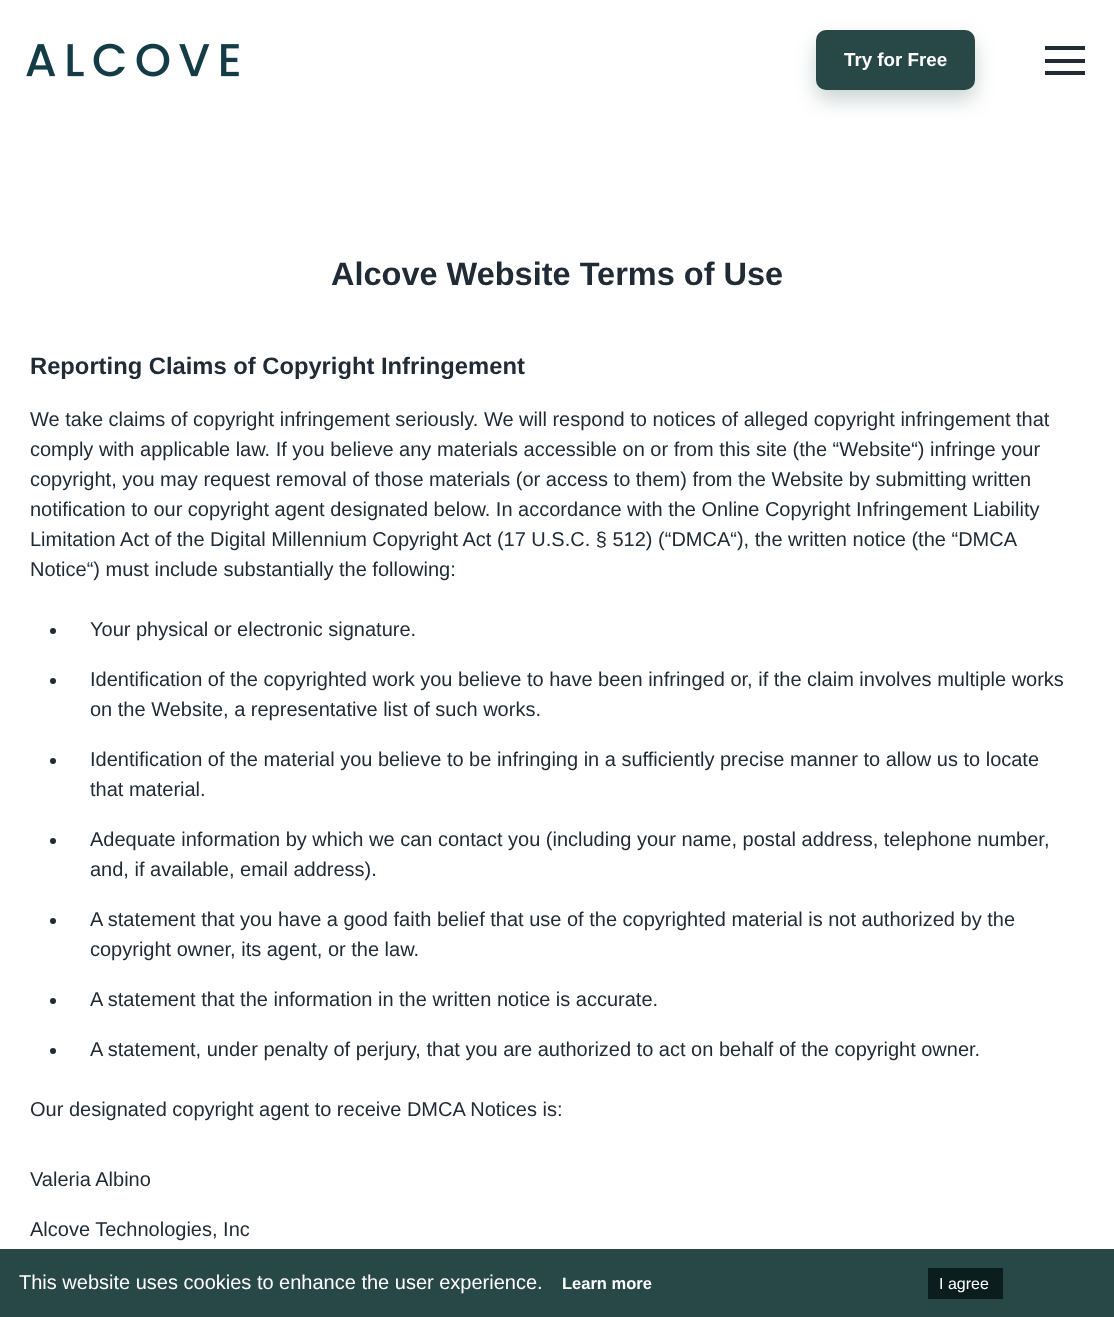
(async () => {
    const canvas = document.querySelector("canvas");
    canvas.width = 1114;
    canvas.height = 1317;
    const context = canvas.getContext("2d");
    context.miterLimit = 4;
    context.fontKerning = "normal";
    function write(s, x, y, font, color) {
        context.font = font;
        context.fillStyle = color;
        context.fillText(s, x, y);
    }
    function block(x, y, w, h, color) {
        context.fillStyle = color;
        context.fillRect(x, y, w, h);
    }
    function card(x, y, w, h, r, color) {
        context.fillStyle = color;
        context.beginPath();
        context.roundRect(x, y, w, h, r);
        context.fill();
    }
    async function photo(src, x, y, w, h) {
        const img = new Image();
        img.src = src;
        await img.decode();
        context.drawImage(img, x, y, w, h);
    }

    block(0, 0, 1114, 1317, "rgb(255, 255, 255)");
    await photo("media/1.png", 26, 43, 213, 34);
    context.fillStyle = "rgba(40, 71, 71, 0.24)";
    context.filter = "blur(10px)";
    context.beginPath();
    context.roundRect(816, 40, 159, 60, 10);
    context.fill();
    context.filter = "none";
    card(816, 30, 159, 60, 10, "rgb(40, 71, 71)");
    write("Try for Free", 844, 66, "bold 18.75px Liberation Sans", "rgb(255, 255, 255)");
    block(1045, 46, 40, 4, "rgb(33, 43, 54)");
    block(1045, 59, 40, 4, "rgb(33, 43, 54)");
    block(1045, 71, 40, 4, "rgb(33, 43, 54)");
    write("Alcove Website Terms of Use", 331, 285, "bold 32.5px Liberation Sans", "rgb(33, 43, 54)");
    write("Reporting Claims of Copyright Infringement", 30, 374, "bold 23.75px Liberation Sans", "rgb(33, 43, 54)");
    write("We take claims of copyright infringement seriously. We will respond to notices of alleged copyright infringement that", 30, 426, "20px Liberation Sans", "rgb(33, 43, 54)");
    write("comply with applicable law. If you believe any materials accessible on or from this site (the “Website“) infringe your", 30, 456, "20px Liberation Sans", "rgb(33, 43, 54)");
    write("copyright, you may request removal of those materials (or access to them) from the Website by submitting written", 30, 486, "20px Liberation Sans", "rgb(33, 43, 54)");
    write("notification to our copyright agent designated below. In accordance with the Online Copyright Infringement Liability", 30, 516, "20px Liberation Sans", "rgb(33, 43, 54)");
    write("Limitation Act of the Digital Millennium Copyright Act (17 U.S.C. § 512) (“DMCA“), the written notice (the “DMCA", 30, 546, "20px Liberation Sans", "rgb(33, 43, 54)");
    write("Notice“) must include substantially the following:", 30, 576, "20px Liberation Sans", "rgb(33, 43, 54)");
    context.beginPath();
    context.arc(53, 631, 3, 0, Math.PI * 2);
    context.fill();
    write("Your physical or electronic signature.", 90, 636, "20px Liberation Sans", "rgb(33, 43, 54)");
    context.beginPath();
    context.arc(53, 681, 3, 0, Math.PI * 2);
    context.fill();
    write("Identification of the copyrighted work you believe to have been infringed or, if the claim involves multiple works", 90, 686, "20px Liberation Sans", "rgb(33, 43, 54)");
    write("on the Website, a representative list of such works.", 90, 716, "20px Liberation Sans", "rgb(33, 43, 54)");
    context.beginPath();
    context.arc(53, 761, 3, 0, Math.PI * 2);
    context.fill();
    write("Identification of the material you believe to be infringing in a sufficiently precise manner to allow us to locate", 90, 766, "20px Liberation Sans", "rgb(33, 43, 54)");
    write("that material.", 90, 796, "20px Liberation Sans", "rgb(33, 43, 54)");
    context.beginPath();
    context.arc(53, 841, 3, 0, Math.PI * 2);
    context.fill();
    write("Adequate information by which we can contact you (including your name, postal address, telephone number,", 90, 846, "20px Liberation Sans", "rgb(33, 43, 54)");
    write("and, if available, email address).", 90, 876, "20px Liberation Sans", "rgb(33, 43, 54)");
    context.beginPath();
    context.arc(53, 921, 3, 0, Math.PI * 2);
    context.fill();
    write("A statement that you have a good faith belief that use of the copyrighted material is not authorized by the", 90, 926, "20px Liberation Sans", "rgb(33, 43, 54)");
    write("copyright owner, its agent, or the law.", 90, 956, "20px Liberation Sans", "rgb(33, 43, 54)");
    context.beginPath();
    context.arc(53, 1001, 3, 0, Math.PI * 2);
    context.fill();
    write("A statement that the information in the written notice is accurate.", 90, 1006, "20px Liberation Sans", "rgb(33, 43, 54)");
    context.beginPath();
    context.arc(53, 1051, 3, 0, Math.PI * 2);
    context.fill();
    write("A statement, under penalty of perjury, that you are authorized to act on behalf of the copyright owner.", 90, 1056, "20px Liberation Sans", "rgb(33, 43, 54)");
    write("Our designated copyright agent to receive DMCA Notices is:", 30, 1116, "20px Liberation Sans", "rgb(33, 43, 54)");
    write("Valeria Albino", 30, 1186, "20px Liberation Sans", "rgb(33, 43, 54)");
    write("Alcove Technologies, Inc", 30, 1236, "20px Liberation Sans", "rgb(33, 43, 54)");
    block(0, 1249, 1114, 68, "rgb(40, 71, 71)");
    write("This website uses cookies to enhance the user experience.", 19, 1289, "20px Liberation Sans", "rgb(255, 255, 255)");
    write("Learn more", 562, 1289, "bold 16.5px Liberation Sans", "rgb(255, 255, 255)");
    block(928, 1268, 75, 31, "rgb(11, 30, 29)");
    write("I agree", 939, 1289, "16px Liberation Sans", "rgb(255, 255, 255)");
})();
